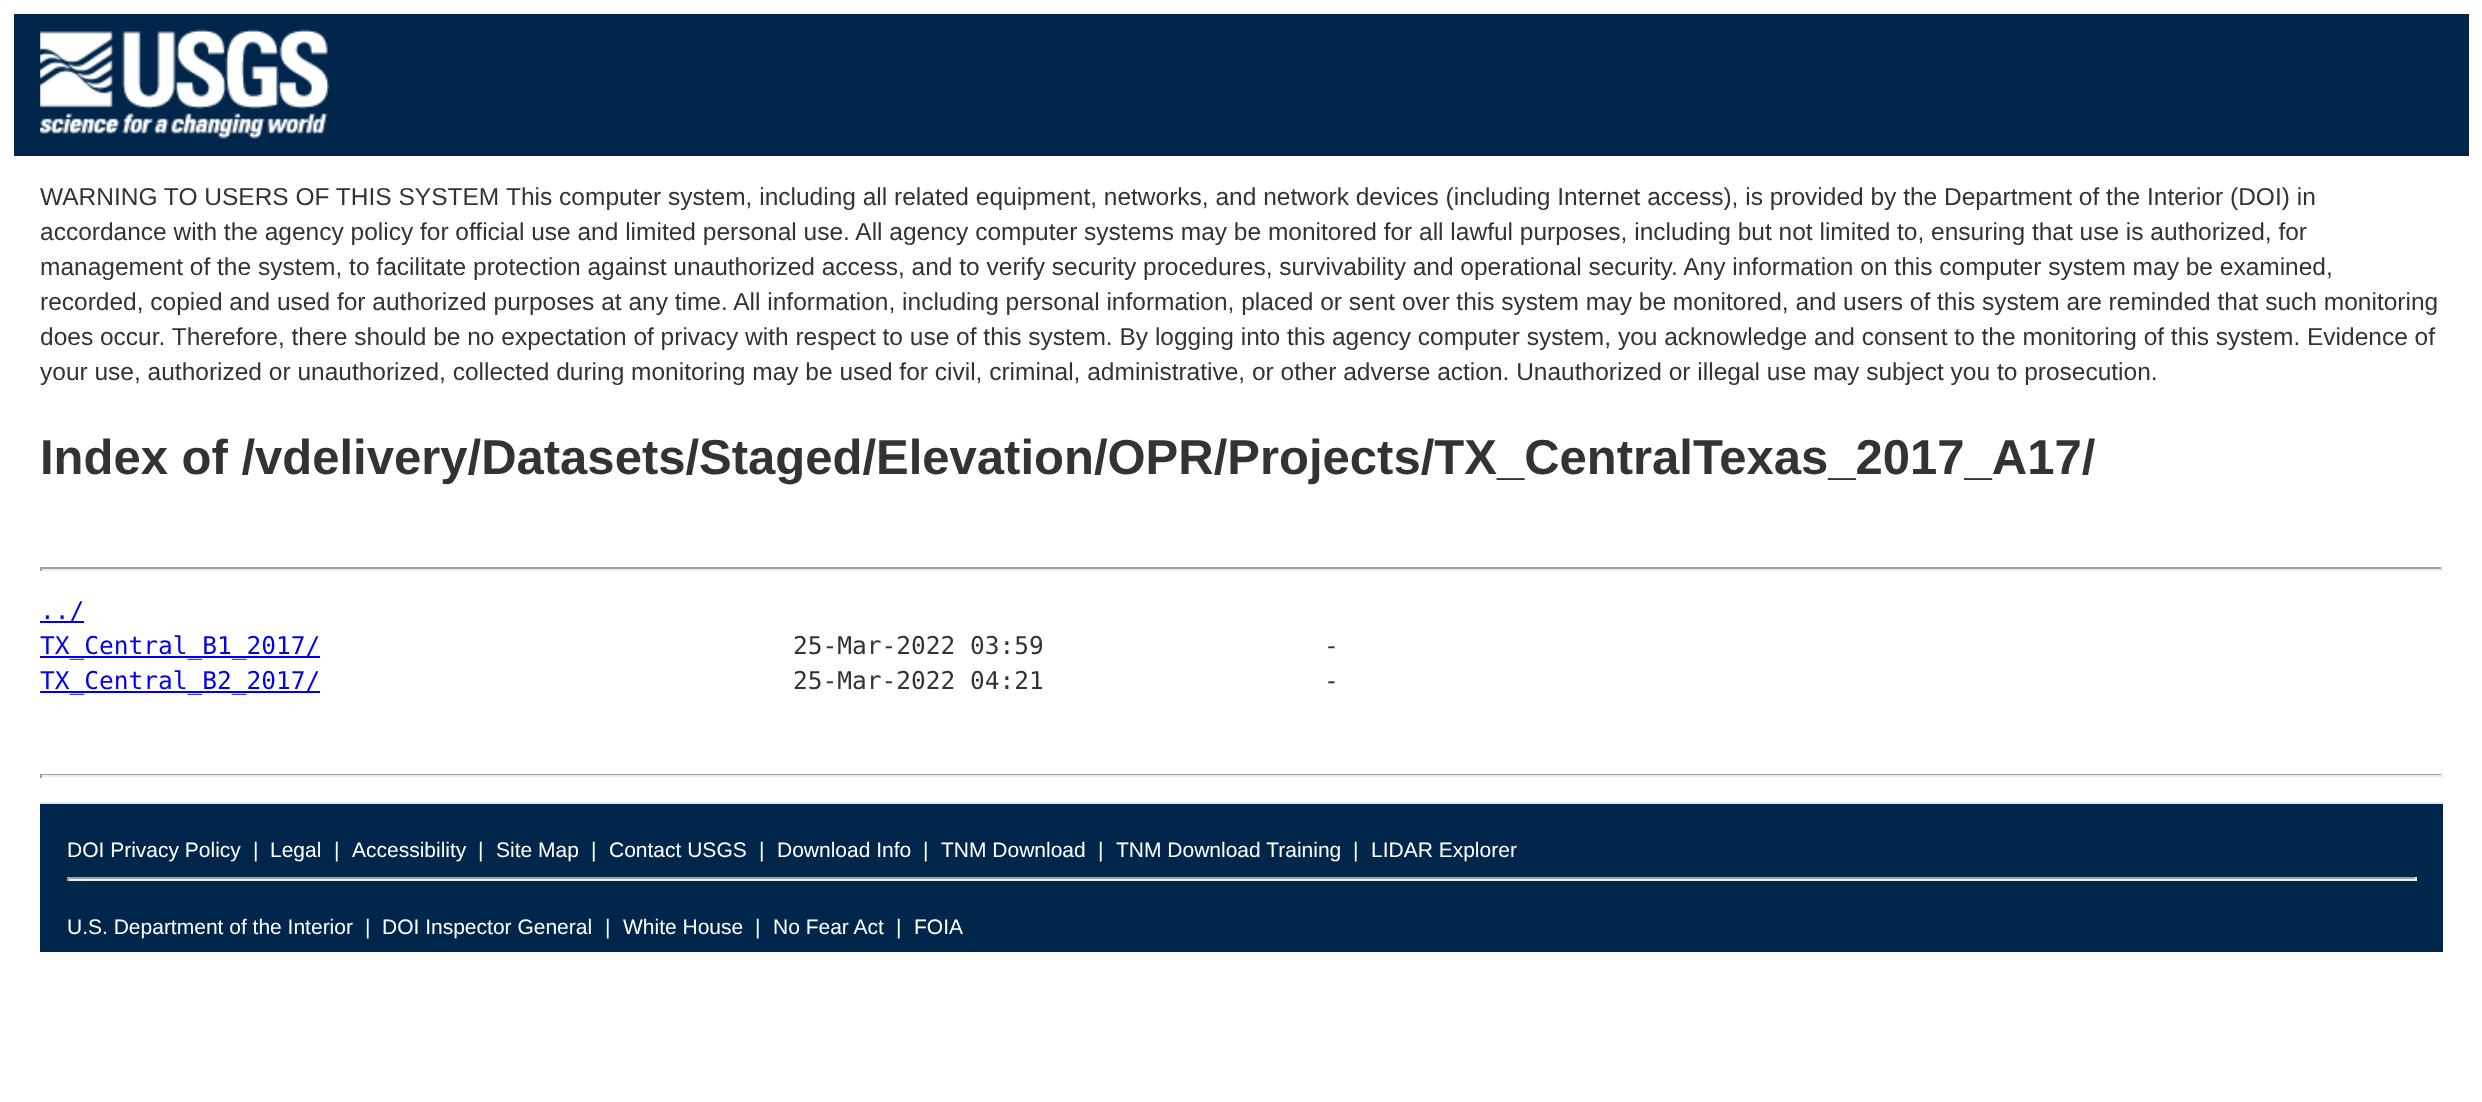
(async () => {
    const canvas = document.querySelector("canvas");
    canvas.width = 2482;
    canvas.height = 1102;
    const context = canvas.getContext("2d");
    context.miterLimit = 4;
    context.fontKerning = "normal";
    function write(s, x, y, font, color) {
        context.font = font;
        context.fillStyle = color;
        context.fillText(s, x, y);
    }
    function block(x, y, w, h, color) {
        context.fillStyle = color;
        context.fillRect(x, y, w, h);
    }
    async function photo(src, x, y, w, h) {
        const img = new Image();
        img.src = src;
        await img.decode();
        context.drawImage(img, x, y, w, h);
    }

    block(0, 0, 2482, 1102, "rgb(255, 255, 255)");
    block(14, 14, 2455, 142, "rgb(0, 38, 76)");
    await photo("media/1.png", 40, 29, 289, 110);
    write("WARNING TO USERS OF THIS SYSTEM", 40, 205, "24.5px Liberation Sans", "rgb(51, 51, 51)");
    write("This computer system, including all related equipment, networks, and network devices (including Internet access), is provided by the Department of the Interior (DOI) in", 506, 205, "24.5px Liberation Sans", "rgb(51, 51, 51)");
    write("accordance with the agency policy for official use and limited personal use. All agency computer systems may be monitored for all lawful purposes, including but not limited to, ensuring that use is authorized, for", 40, 240, "24.5px Liberation Sans", "rgb(51, 51, 51)");
    write("management of the system, to facilitate protection against unauthorized access, and to verify security procedures, survivability and operational security. Any information on this computer system may be examined,", 40, 275, "24.5px Liberation Sans", "rgb(51, 51, 51)");
    write("recorded, copied and used for authorized purposes at any time. All information, including personal information, placed or sent over this system may be monitored, and users of this system are reminded that such monitoring", 40, 310, "24.5px Liberation Sans", "rgb(51, 51, 51)");
    write("does occur. Therefore, there should be no expectation of privacy with respect to use of this system. By logging into this agency computer system, you acknowledge and consent to the monitoring of this system. Evidence of", 40, 345, "24.5px Liberation Sans", "rgb(51, 51, 51)");
    write("your use, authorized or unauthorized, collected during monitoring may be used for civil, criminal, administrative, or other adverse action. Unauthorized or illegal use may subject you to prosecution.", 40, 380, "24.5px Liberation Sans", "rgb(51, 51, 51)");
    write("Index of /vdelivery/Datasets/Staged/Elevation/OPR/Projects/TX_CentralTexas_2017_A17/", 40, 474, "bold 49px Liberation Sans", "rgb(51, 51, 51)");
    block(40, 567, 2403, 2, "rgb(159, 159, 159)");
    block(2441, 567, 2, 4, "rgb(238, 238, 238)");
    block(40, 569, 2403, 2, "rgb(238, 238, 238)");
    block(40, 567, 2, 4, "rgb(159, 159, 159)");
    block(40, 621, 44, 2, "rgb(0, 0, 238)");
    write("../", 40, 619, "24.5px DejaVu Sans Mono", "rgb(0, 0, 238)");
    block(40, 656, 280, 2, "rgb(0, 0, 238)");
    write("TX_Central_B1_2017/", 40, 654, "24.5px DejaVu Sans Mono", "rgb(0, 0, 238)");
    write("25-Mar-2022 03:59                   -", 793, 654, "24.5px DejaVu Sans Mono", "rgb(51, 51, 51)");
    block(40, 691, 280, 2, "rgb(0, 0, 238)");
    write("TX_Central_B2_2017/", 40, 689, "24.5px DejaVu Sans Mono", "rgb(0, 0, 238)");
    write("25-Mar-2022 04:21                   -", 793, 689, "24.5px DejaVu Sans Mono", "rgb(51, 51, 51)");
    block(40, 774, 2403, 1, "rgb(159, 159, 159)");
    block(2441, 774, 2, 4, "rgb(238, 238, 238)");
    block(40, 775, 2403, 2, "rgb(238, 238, 238)");
    block(40, 774, 2, 4, "rgb(159, 159, 159)");
    block(40, 804, 2403, 148, "rgb(0, 38, 76)");
    block(40, 802, 2403, 2, "rgb(229, 229, 229)");
    write("DOI Privacy Policy", 67, 857, "21px Liberation Sans", "rgb(255, 255, 255)");
    write("|", 253, 857, "21px Liberation Sans", "rgb(255, 255, 255)");
    write("Legal", 270, 857, "21px Liberation Sans", "rgb(255, 255, 255)");
    write("|", 334, 857, "21px Liberation Sans", "rgb(255, 255, 255)");
    write("Accessibility", 352, 857, "21px Liberation Sans", "rgb(255, 255, 255)");
    write("|", 478, 857, "21px Liberation Sans", "rgb(255, 255, 255)");
    write("Site Map", 496, 857, "21px Liberation Sans", "rgb(255, 255, 255)");
    write("|", 591, 857, "21px Liberation Sans", "rgb(255, 255, 255)");
    write("Contact USGS", 609, 857, "21px Liberation Sans", "rgb(255, 255, 255)");
    write("|", 759, 857, "21px Liberation Sans", "rgb(255, 255, 255)");
    write("Download Info", 777, 857, "21px Liberation Sans", "rgb(255, 255, 255)");
    write("|", 923, 857, "21px Liberation Sans", "rgb(255, 255, 255)");
    write("TNM Download", 941, 857, "21px Liberation Sans", "rgb(255, 255, 255)");
    write("|", 1098, 857, "21px Liberation Sans", "rgb(255, 255, 255)");
    write("TNM Download Training", 1116, 857, "21px Liberation Sans", "rgb(255, 255, 255)");
    write("|", 1353, 857, "21px Liberation Sans", "rgb(255, 255, 255)");
    write("LIDAR Explorer", 1371, 857, "21px Liberation Sans", "rgb(255, 255, 255)");
    block(67, 877, 2350, 2, "rgb(159, 159, 159)");
    block(2415, 877, 2, 4, "rgb(238, 238, 238)");
    block(67, 879, 2350, 2, "rgb(238, 238, 238)");
    block(67, 877, 2, 4, "rgb(159, 159, 159)");
    write("U.S. Department of the Interior", 67, 934, "21px Liberation Sans", "rgb(255, 255, 255)");
    write("|", 365, 934, "21px Liberation Sans", "rgb(255, 255, 255)");
    write("DOI Inspector General", 382, 934, "21px Liberation Sans", "rgb(255, 255, 255)");
    write("|", 605, 934, "21px Liberation Sans", "rgb(255, 255, 255)");
    write("White House", 623, 934, "21px Liberation Sans", "rgb(255, 255, 255)");
    write("|", 755, 934, "21px Liberation Sans", "rgb(255, 255, 255)");
    write("No Fear Act", 773, 934, "21px Liberation Sans", "rgb(255, 255, 255)");
    write("|", 896, 934, "21px Liberation Sans", "rgb(255, 255, 255)");
    write("FOIA", 914, 934, "21px Liberation Sans", "rgb(255, 255, 255)");
})();
